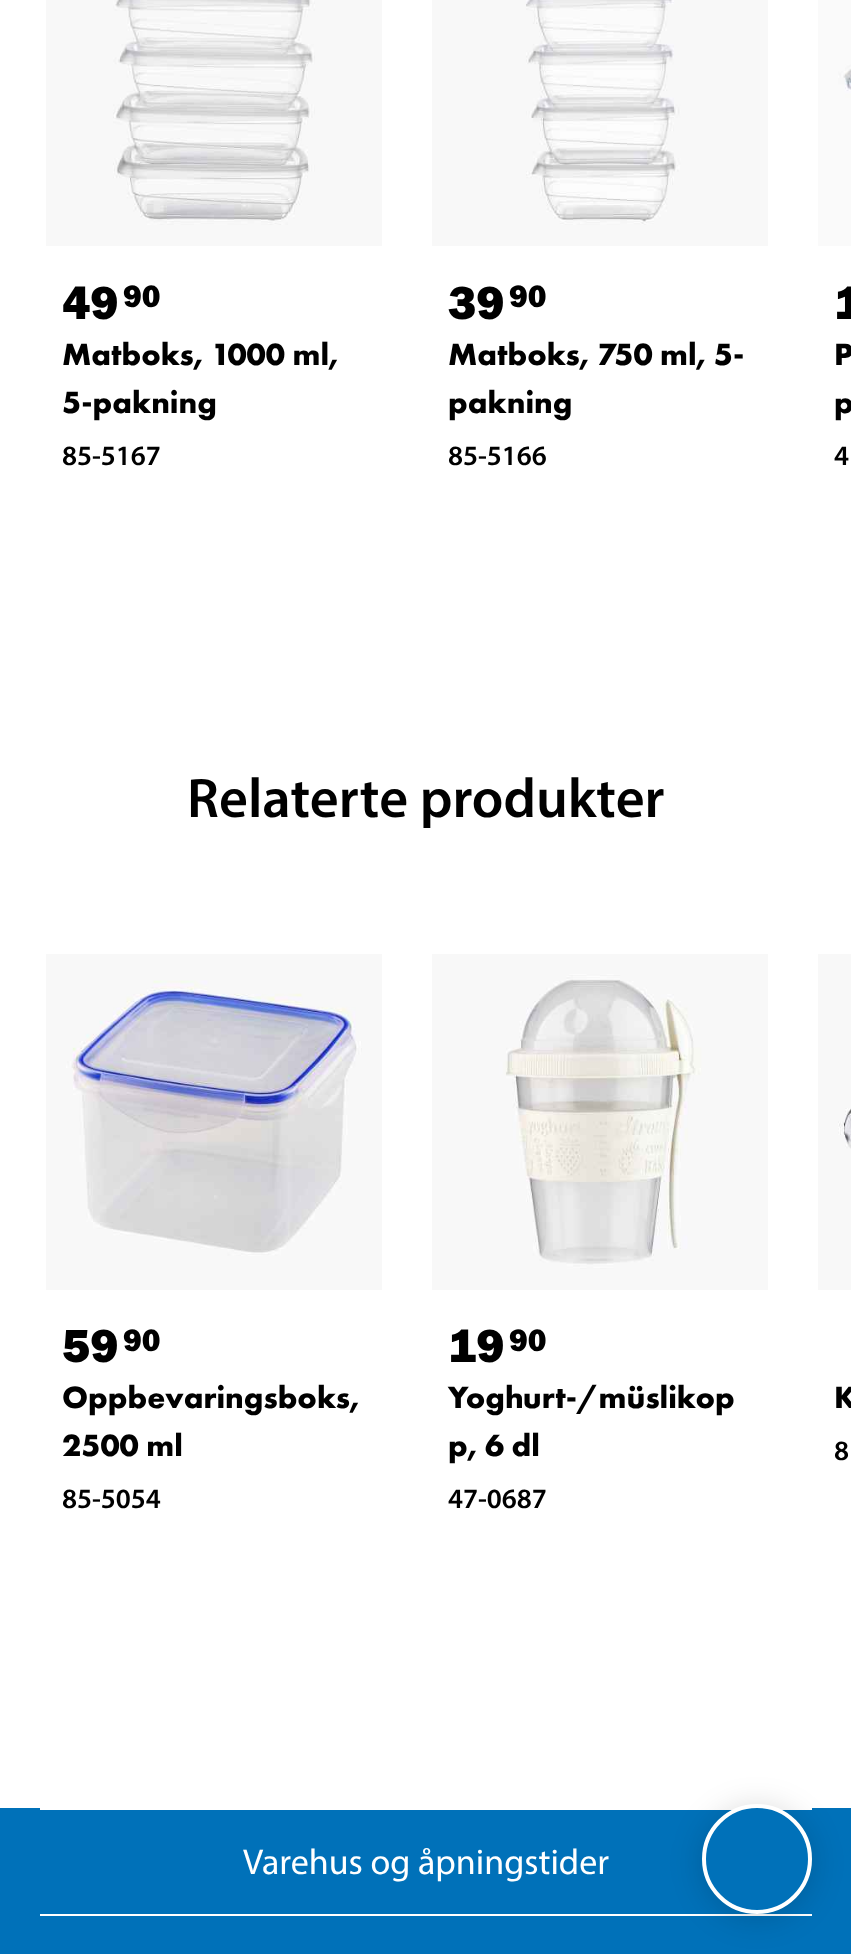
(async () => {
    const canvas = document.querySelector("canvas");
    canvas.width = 851;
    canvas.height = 1954;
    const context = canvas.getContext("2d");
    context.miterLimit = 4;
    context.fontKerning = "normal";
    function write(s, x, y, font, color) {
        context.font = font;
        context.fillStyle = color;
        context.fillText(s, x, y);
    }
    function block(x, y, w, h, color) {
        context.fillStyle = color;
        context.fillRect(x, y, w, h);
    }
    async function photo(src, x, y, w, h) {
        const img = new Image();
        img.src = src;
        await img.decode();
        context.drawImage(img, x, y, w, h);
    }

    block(0, 0, 851, 1954, "rgb(255, 255, 255)");
    await photo("media/1.png", 46, 0, 336, 246);
    write("49", 62, 319, "900 48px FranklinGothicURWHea", "rgb(0, 0, 0)");
    write("90", 123, 307, "900 32px FranklinGothicURWHea", "rgb(0, 0, 0)");
    write("Matboks, 1000 ml,", 62, 365, "bold 32px Futura PT", "rgb(0, 0, 0)");
    write("5-pakning", 62, 413, "bold 32px Futura PT", "rgb(0, 0, 0)");
    write("85-5167", 62, 465, "600 28px Myriad", "rgb(0, 0, 0)");
    await photo("media/2.png", 432, 0, 336, 246);
    write("39", 448, 319, "900 48px FranklinGothicURWHea", "rgb(0, 0, 0)");
    write("90", 509, 307, "900 32px FranklinGothicURWHea", "rgb(0, 0, 0)");
    write("Matboks, 750 ml, 5-", 448, 365, "bold 32px Futura PT", "rgb(0, 0, 0)");
    write("pakning", 448, 413, "bold 32px Futura PT", "rgb(0, 0, 0)");
    write("85-5166", 448, 465, "600 28px Myriad", "rgb(0, 0, 0)");
    await photo("media/3.png", 818, 0, 33, 246);
    write("1", 834, 319, "900 48px FranklinGothicURWHea", "rgb(0, 0, 0)");
    write("P", 834, 365, "bold 32px Futura PT", "rgb(0, 0, 0)");
    write("p", 834, 413, "bold 32px Futura PT", "rgb(0, 0, 0)");
    write("4", 834, 465, "600 28px Myriad", "rgb(0, 0, 0)");
    write("Relaterte produkter", 187, 817, "600 56px Myriad", "rgb(0, 0, 0)");
    await photo("media/4.png", 46, 954, 336, 336);
    write("59", 62, 1362, "900 48px FranklinGothicURWHea", "rgb(0, 0, 0)");
    write("90", 123, 1351, "900 32px FranklinGothicURWHea", "rgb(0, 0, 0)");
    write("Oppbevaringsboks,", 62, 1408, "bold 32px Futura PT", "rgb(0, 0, 0)");
    write("2500 ml", 62, 1456, "bold 32px Futura PT", "rgb(0, 0, 0)");
    write("85-5054", 62, 1508, "600 28px Myriad", "rgb(0, 0, 0)");
    await photo("media/5.png", 432, 954, 336, 336);
    write("19", 448, 1362, "900 48px FranklinGothicURWHea", "rgb(0, 0, 0)");
    write("90", 509, 1351, "900 32px FranklinGothicURWHea", "rgb(0, 0, 0)");
    write("Yoghurt-/müslikop", 448, 1408, "bold 32px Futura PT", "rgb(0, 0, 0)");
    write("p, 6 dl", 448, 1456, "bold 32px Futura PT", "rgb(0, 0, 0)");
    write("47-0687", 448, 1508, "600 28px Myriad", "rgb(0, 0, 0)");
    await photo("media/6.png", 818, 954, 33, 336);
    write("K", 834, 1408, "bold 32px Futura PT", "rgb(0, 0, 0)");
    write("8", 834, 1460, "600 28px Myriad", "rgb(0, 0, 0)");
    block(0, 1808, 851, 146, "rgb(0, 113, 185)");
    block(40, 1808, 772, 2, "rgb(255, 255, 255)");
    block(40, 1914, 772, 2, "rgb(255, 255, 255)");
    write("Varehus og åpningstider", 243, 1874, "36px Myriad", "rgb(255, 255, 255)");
    context.fillStyle = "rgba(0, 0, 0, 0.16)";
    context.filter = "blur(16px)";
    context.beginPath();
    context.roundRect(702, 1808, 110, 110, 55);
    context.fill();
    context.filter = "none";
    context.fillStyle = "rgb(0, 113, 185)";
    context.beginPath();
    context.arc(757, 1859, 53, 0, Math.PI * 2);
    context.fill();
    context.strokeStyle = "rgb(255, 255, 255)";
    context.lineWidth = 4;
    context.stroke();
})();
